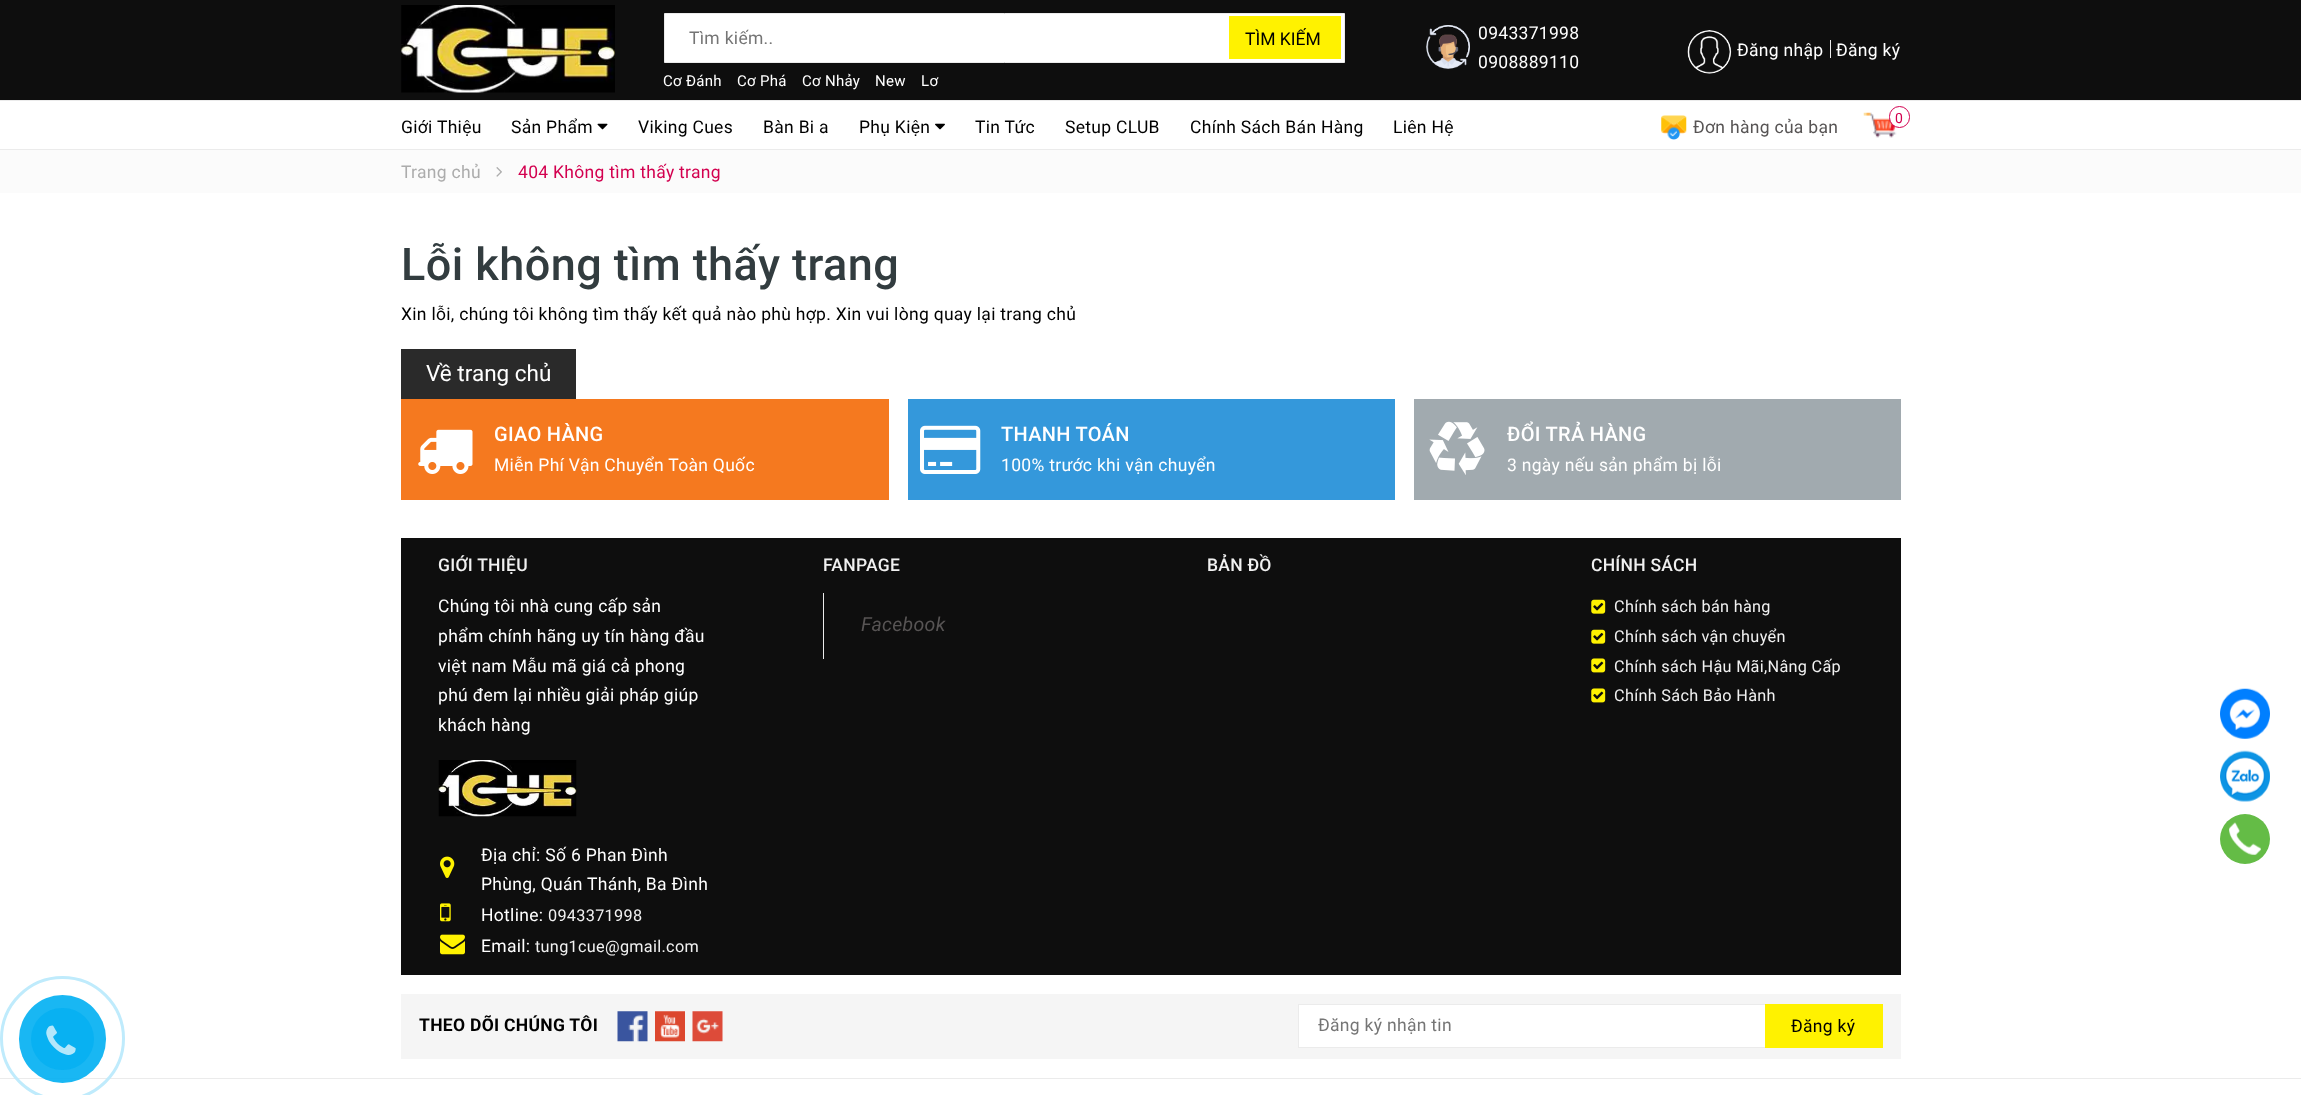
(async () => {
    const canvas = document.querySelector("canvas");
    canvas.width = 2301;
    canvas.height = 1095;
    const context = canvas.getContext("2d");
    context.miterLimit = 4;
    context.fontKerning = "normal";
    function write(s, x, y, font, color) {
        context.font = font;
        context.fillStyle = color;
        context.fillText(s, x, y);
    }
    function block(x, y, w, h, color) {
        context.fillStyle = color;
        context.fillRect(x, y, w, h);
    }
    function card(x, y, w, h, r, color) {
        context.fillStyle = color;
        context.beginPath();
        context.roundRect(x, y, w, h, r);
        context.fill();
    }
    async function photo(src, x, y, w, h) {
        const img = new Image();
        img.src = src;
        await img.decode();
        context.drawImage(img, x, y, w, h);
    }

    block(0, 0, 2301, 1095, "rgb(255, 255, 255)");
    block(0, 0, 2301, 100, "rgb(14, 14, 14)");
    await photo("media/1.png", 401, 5, 214, 88);
    context.fillStyle = "rgb(255, 255, 255)";
    context.beginPath();
    context.rect(664.5, 13.5, 680, 49);
    context.fill();
    context.strokeStyle = "rgb(235, 235, 235)";
    context.stroke();
    context.letterSpacing = "0.3px";
    write("Tìm kiếm..", 689, 44, "17.5px Roboto", "rgb(117, 117, 117)");
    block(1229, 16, 112, 43, "rgb(255, 242, 0)");
    context.letterSpacing = "0px";
    write("TÌM KIẾM", 1245, 45, "17.5px Roboto", "rgb(0, 0, 0)");
    context.letterSpacing = "0.3px";
    write("Cơ Đánh", 663, 86, "15px Roboto", "rgb(255, 255, 255)");
    write("Cơ Phá", 737, 86, "15px Roboto", "rgb(255, 255, 255)");
    write("Cơ Nhảy", 802, 86, "15px Roboto", "rgb(255, 255, 255)");
    write("New", 875, 86, "15px Roboto", "rgb(255, 255, 255)");
    write("Lơ", 921, 86, "15px Roboto", "rgb(255, 255, 255)");
    await photo("media/2.png", 1426, 25, 44, 44);
    write("0943371998", 1478, 39, "17.5px Roboto", "rgb(255, 255, 255)");
    write("0908889110", 1478, 68, "17.5px Roboto", "rgb(255, 255, 255)");
    await photo("media/3.png", 1687, 30, 45, 44);
    write("Đăng nhập", 1737, 56, "17.5px Roboto", "rgb(255, 255, 255)");
    block(1830, 40, 1, 18, "rgb(235, 235, 235)");
    write("Đăng ký", 1836, 56, "17.5px Roboto", "rgb(255, 255, 255)");
    block(0, 100, 2301, 1, "rgb(235, 235, 235)");
    block(0, 149, 2301, 1, "rgb(235, 235, 235)");
    write("Giới Thiệu", 401, 133, "17.5px Roboto", "rgb(0, 0, 0)");
    write("Sản Phẩm", 511, 133, "17.5px Roboto", "rgb(0, 0, 0)");
    await photo("media/4.png", 597, 123, 11, 7);
    write("Viking Cues", 638, 133, "17.5px Roboto", "rgb(0, 0, 0)");
    write("Bàn Bi a", 763, 133, "17.5px Roboto", "rgb(0, 0, 0)");
    write("Phụ Kiện", 859, 133, "17.5px Roboto", "rgb(0, 0, 0)");
    await photo("media/5.png", 935, 123, 10, 7);
    write("Tin Tức", 975, 133, "17.5px Roboto", "rgb(0, 0, 0)");
    write("Setup CLUB", 1065, 133, "17.5px Roboto", "rgb(0, 0, 0)");
    write("Chính Sách Bán Hàng", 1190, 133, "17.5px Roboto", "rgb(0, 0, 0)");
    write("Liên Hệ", 1393, 133, "17.5px Roboto", "rgb(0, 0, 0)");
    await photo("media/6.png", 1661, 115, 26, 25);
    write("Đơn hàng của bạn", 1693, 133, "17.5px Roboto", "rgb(87, 84, 84)");
    await photo("media/7.png", 1863, 112, 34, 26);
    context.fillStyle = "rgb(255, 255, 255)";
    context.beginPath();
    context.roundRect(1889.5, 106.5, 20, 21, 10);
    context.fill();
    context.strokeStyle = "rgb(211, 0, 79)";
    context.stroke();
    write("0", 1895, 123, "14px Roboto", "rgb(211, 0, 79)");
    block(0, 150, 2301, 43, "rgb(251, 251, 251)");
    write("Trang chủ", 401, 178, "17.5px Roboto", "rgb(172, 172, 172)");
    await photo("media/8.png", 496, 167, 6, 10);
    write("404 Không tìm thấy trang", 518, 178, "17.5px Roboto", "rgb(211, 0, 79)");
    context.letterSpacing = "0.45px";
    write("Lỗi không tìm thấy trang", 401, 280, "500 45px Roboto", "rgb(50, 60, 63)");
    context.letterSpacing = "0.3px";
    write("Xin lỗi, chúng tôi không tìm thấy kết quả nào phù hợp. Xin vui lòng quay lại trang chủ", 401, 320, "17.5px Roboto", "rgb(0, 0, 0)");
    block(401, 349, 175, 50, "rgb(42, 42, 42)");
    context.letterSpacing = "0px";
    write("Về trang chủ", 426, 381, "22.5px Roboto", "rgb(255, 255, 255)");
    block(0, 1078, 2301, 1, "rgb(235, 235, 235)");
    context.beginPath();
    context.arc(62.5, 1038.5, 61, 0, Math.PI * 2);
    context.strokeStyle = "rgb(191, 235, 252)";
    context.lineWidth = 3;
    context.stroke();
    card(19, 995, 87, 88, 43.5, "rgba(0, 175, 242, 0.9)");
    card(31, 1008, 63, 62, 31, "rgb(8, 177, 242)");
    await photo("media/9.png", 46, 1025, 30, 30);
    block(401, 399, 488, 101, "rgb(245, 121, 31)");
    await photo("media/10.png", 418, 429, 55, 45);
    context.letterSpacing = "0.3px";
    write("GIAO HÀNG", 494, 441, "500 20px Roboto", "rgb(255, 255, 255)");
    write("Miễn Phí Vận Chuyển Toàn Quốc", 494, 471, "17.5px Roboto", "rgb(255, 255, 255)");
    block(908, 399, 487, 101, "rgb(52, 152, 219)");
    await photo("media/11.png", 920, 425, 61, 49);
    write("THANH TOÁN", 1001, 441, "500 20px Roboto", "rgb(255, 255, 255)");
    write("100% trước khi vận chuyển", 1001, 471, "17.5px Roboto", "rgb(255, 255, 255)");
    block(1414, 399, 487, 101, "rgb(161, 170, 175)");
    await photo("media/12.png", 1429, 421, 56, 54);
    write("ĐỔI TRẢ HÀNG", 1507, 441, "500 20px Roboto", "rgb(255, 255, 255)");
    write("3 ngày nếu sản phẩm bị lỗi", 1507, 471, "17.5px Roboto", "rgb(255, 255, 255)");
    block(401, 538, 1500, 437, "rgb(14, 14, 14)");
    context.letterSpacing = "0.25px";
    write("GIỚI THIỆU", 438, 571, "500 17.5px Roboto", "rgb(241, 241, 241)");
    context.letterSpacing = "0.3px";
    write("Chúng tôi nhà cung cấp sản", 438, 612, "17.5px Roboto", "rgb(255, 255, 255)");
    write("phẩm chính hãng uy tín hàng đầu", 438, 642, "17.5px Roboto", "rgb(255, 255, 255)");
    write("việt nam Mẫu mã giá cả phong", 438, 672, "17.5px Roboto", "rgb(255, 255, 255)");
    write("phú đem lại nhiều giải pháp giúp", 438, 701, "17.5px Roboto", "rgb(255, 255, 255)");
    write("khách hàng", 438, 731, "17.5px Roboto", "rgb(255, 255, 255)");
    await photo("media/13.png", 438, 760, 139, 57);
    await photo("media/14.png", 440, 856, 15, 22);
    write("Địa chỉ: Số 6 Phan Đình", 481, 861, "17.5px Roboto", "rgb(255, 255, 255)");
    write("Phùng, Quán Thánh, Ba Đình", 481, 890, "17.5px Roboto", "rgb(255, 255, 255)");
    await photo("media/15.png", 440, 903, 11, 19);
    write("Hotline:", 481, 921, "17.5px Roboto", "rgb(255, 255, 255)");
    write("0943371998", 548, 921, "16.25px Roboto", "rgb(241, 241, 241)");
    await photo("media/16.png", 440, 934, 25, 21);
    write("Email:", 481, 952, "17.5px Roboto", "rgb(255, 255, 255)");
    write("tung1cue@gmail.com", 535, 952, "16.25px Roboto", "rgb(241, 241, 241)");
    context.letterSpacing = "0.25px";
    write("FANPAGE", 823, 571, "500 17.5px Roboto", "rgb(241, 241, 241)");
    block(823, 593, 1, 66, "rgb(235, 235, 235)");
    context.letterSpacing = "0.3px";
    write("Facebook", 861, 631, "italic 19.5px Roboto", "rgb(87, 84, 84)");
    context.letterSpacing = "0.25px";
    write("BẢN ĐỒ", 1207, 571, "500 17.5px Roboto", "rgb(241, 241, 241)");
    write("CHÍNH SÁCH", 1591, 571, "500 17.5px Roboto", "rgb(241, 241, 241)");
    await photo("media/17.png", 1591, 599, 15, 15);
    context.letterSpacing = "0.3px";
    write("Chính sách bán hàng", 1614, 612, "16.25px Roboto", "rgb(241, 241, 241)");
    await photo("media/17.png", 1591, 629, 15, 15);
    write("Chính sách vận chuyển", 1614, 642, "16.25px Roboto", "rgb(241, 241, 241)");
    await photo("media/18.png", 1591, 658, 15, 15);
    write("Chính sách Hậu Mãi,Nâng Cấp", 1614, 672, "16.25px Roboto", "rgb(241, 241, 241)");
    await photo("media/18.png", 1591, 688, 15, 15);
    write("Chính Sách Bảo Hành", 1614, 701, "16.25px Roboto", "rgb(241, 241, 241)");
    block(401, 994, 1500, 65, "rgb(245, 245, 245)");
    write("THEO DÕI CHÚNG TÔI", 419, 1031, "bold 17.5px Roboto", "rgb(0, 0, 0)");
    await photo("media/19.png", 617, 1011, 31, 31);
    await photo("media/20.png", 655, 1011, 30, 31);
    await photo("media/21.png", 692, 1011, 31, 31);
    block(1299, 1005, 466, 42, "rgb(255, 255, 255)");
    context.strokeStyle = "rgb(235, 235, 235)";
    context.lineWidth = 1;
    context.strokeRect(1298.5, 1004.5, 584, 43);
    write("Đăng ký nhận tin", 1318, 1031, "17.5px Roboto", "rgb(117, 117, 117)");
    block(1765, 1004, 118, 44, "rgb(255, 242, 0)");
    write("Đăng ký", 1791, 1032, "17.5px Roboto", "rgb(0, 0, 0)");
    await photo("media/22.png", 2220, 688, 50, 51);
    await photo("media/23.png", 2220, 750, 50, 52);
    context.fillStyle = "rgb(100, 188, 70)";
    context.beginPath();
    context.arc(2245, 839, 25, 0, Math.PI * 2);
    context.fill();
    await photo("media/24.png", 2229, 822, 32, 33);
})();
